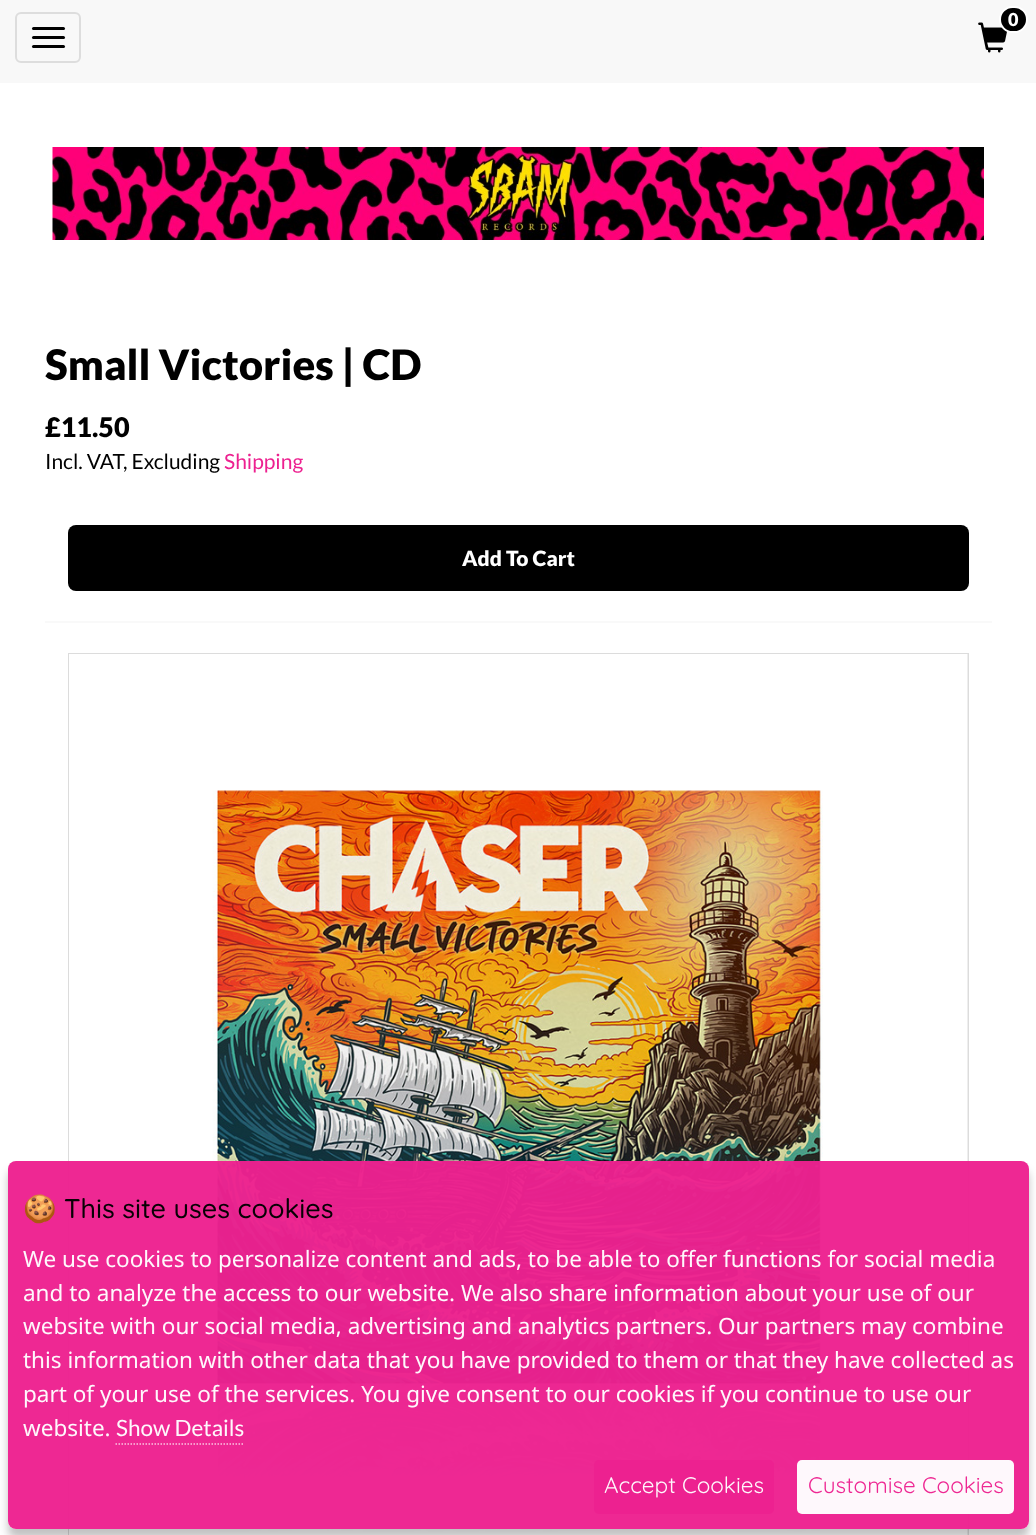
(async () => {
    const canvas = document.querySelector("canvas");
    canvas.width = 1036;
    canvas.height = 1535;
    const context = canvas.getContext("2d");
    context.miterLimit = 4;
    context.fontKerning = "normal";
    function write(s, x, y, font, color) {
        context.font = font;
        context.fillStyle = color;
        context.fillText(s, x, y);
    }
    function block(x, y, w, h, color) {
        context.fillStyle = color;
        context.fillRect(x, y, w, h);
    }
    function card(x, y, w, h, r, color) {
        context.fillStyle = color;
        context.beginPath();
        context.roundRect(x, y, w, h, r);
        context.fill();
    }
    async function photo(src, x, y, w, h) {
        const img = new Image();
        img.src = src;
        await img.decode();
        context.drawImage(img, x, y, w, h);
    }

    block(0, 0, 1036, 1535, "rgb(255, 255, 255)");
    block(0, 0, 1036, 83, "rgb(248, 248, 248)");
    context.beginPath();
    context.roundRect(16, 13, 64, 49, 5);
    context.strokeStyle = "rgb(221, 221, 221)";
    context.lineWidth = 2;
    context.stroke();
    card(32, 27, 33, 3, 1.5, "rgb(0, 0, 0)");
    card(32, 36, 33, 3, 1.5, "rgb(0, 0, 0)");
    card(32, 45, 33, 3, 1.5, "rgb(0, 0, 0)");
    await photo("media/1.png", 978, 22, 30, 31);
    context.beginPath();
    context.roundRect(1000, 7, 27, 25, 12.5);
    context.fill();
    context.strokeStyle = "rgb(255, 255, 255)";
    context.stroke();
    write("0", 1008, 26, "900 18px Lato", "rgb(255, 255, 255)");
    await photo("media/2.png", 52, 147, 932, 93);
    write("Small Victories | CD", 45, 380, "900 42px Lato", "rgb(0, 0, 0)");
    write("£11.50", 45, 437, "900 27px Lato", "rgb(0, 0, 0)");
    write("Incl. VAT, Excluding", 45, 469, "21px Lato", "rgb(0, 0, 0)");
    write("Shipping", 224, 469, "21px Lato", "rgb(237, 33, 144)");
    block(45, 621, 947, 2, "rgb(249, 249, 249)");
    card(68, 525, 901, 66, 8, "rgb(0, 0, 0)");
    write("Add To Cart", 462, 566, "900 21px Lato", "rgb(255, 255, 255)");
    context.strokeStyle = "rgb(220, 220, 220)";
    context.strokeRect(69, 654, 899, 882);
    await photo("media/3.png", 69, 654, 899, 881);
    context.save();
    context.beginPath();
    context.moveTo(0, 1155);
    context.lineTo(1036, 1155);
    context.lineTo(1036, 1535);
    context.lineTo(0, 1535);
    context.closePath();
    context.moveTo(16, 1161);
    context.lineTo(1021, 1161);
    context.bezierCurveTo(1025.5, 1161, 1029, 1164.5, 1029, 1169);
    context.lineTo(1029, 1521);
    context.bezierCurveTo(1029, 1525.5, 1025.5, 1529, 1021, 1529);
    context.lineTo(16, 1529);
    context.bezierCurveTo(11.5, 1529, 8, 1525.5, 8, 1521);
    context.lineTo(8, 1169);
    context.bezierCurveTo(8, 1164.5, 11.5, 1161, 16, 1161);
    context.closePath();
    context.clip("evenodd");
    context.fillStyle = "rgba(0, 0, 0, 0.24)";
    context.filter = "blur(4.5px)";
    context.beginPath();
    context.roundRect(8, 1170, 1021, 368, 8);
    context.fill();
    context.filter = "none";
    context.restore();
    card(8, 1161, 1021, 368, 8, "rgba(237, 33, 144, 0.97)");
    write("🍪", 23, 1218, "27px Noto Color Emoji", "rgb(8, 8, 8)");
    write("This site uses cookies", 64, 1218, "500 27px Quicksand", "rgb(7, 1, 4)");
    write("We use cookies to personalize content and ads, to be able to offer functions for social media", 23, 1267, "22.5px Noto Sans", "rgb(254, 248, 252)");
    write("and to analyze the access to our website. We also share information about your use of our", 23, 1301, "22.5px Noto Sans", "rgb(254, 248, 252)");
    write("website with our social media, advertising and analytics partners. Our partners may combine", 23, 1334, "22.5px Noto Sans", "rgb(254, 248, 252)");
    write("this information with other data that you have provided to them or that they have collected as", 23, 1368, "22.5px Noto Sans", "rgb(254, 248, 252)");
    write("part of your use of the services. You give consent to our cookies if you continue to use our", 23, 1402, "22.5px Noto Sans", "rgb(254, 248, 252)");
    write("website.", 23, 1436, "22.5px Noto Sans", "rgb(254, 248, 252)");
    write("Show Details", 116, 1436, "22.5px Lato", "rgb(254, 248, 252)");
    context.beginPath();
    context.moveTo(115.5, 1444);
    context.lineTo(244.5, 1444);
    context.strokeStyle = "rgb(250, 196, 226)";
    context.lineWidth = 1.5;
    context.setLineDash([1.5, 1.5]);
    context.stroke();
    card(594, 1460, 180, 54, 5, "rgb(237, 33, 144)");
    write("Accept Cookies", 604, 1493, "22.5px Quicksand", "rgb(254, 248, 252)");
    card(797, 1460, 217, 54, 5, "rgb(254, 248, 252)");
    write("Customise Cookies", 808, 1493, "22.5px Quicksand", "rgb(238, 40, 147)");
})();
